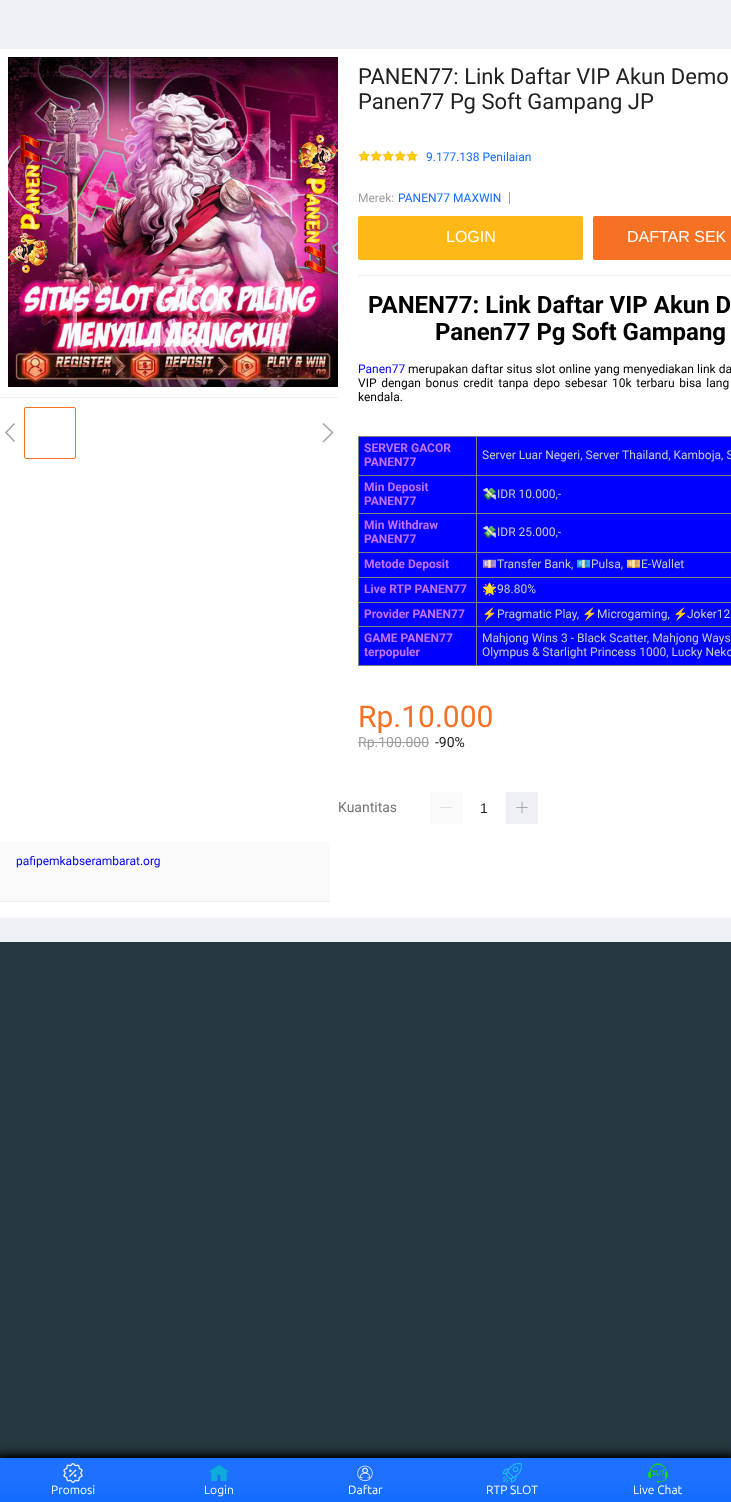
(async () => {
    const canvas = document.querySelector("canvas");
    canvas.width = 731;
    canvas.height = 1502;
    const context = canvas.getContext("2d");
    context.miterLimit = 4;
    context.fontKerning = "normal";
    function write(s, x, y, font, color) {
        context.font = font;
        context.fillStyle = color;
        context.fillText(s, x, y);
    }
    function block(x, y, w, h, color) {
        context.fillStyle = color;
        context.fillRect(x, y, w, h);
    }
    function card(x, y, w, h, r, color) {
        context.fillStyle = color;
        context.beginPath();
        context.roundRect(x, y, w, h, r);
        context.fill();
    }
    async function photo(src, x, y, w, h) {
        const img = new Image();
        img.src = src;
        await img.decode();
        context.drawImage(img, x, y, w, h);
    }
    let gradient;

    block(0, 0, 731, 1502, "rgb(38, 56, 63)");
    block(0, 0, 731, 49, "rgb(239, 240, 245)");
    block(0, 918, 731, 24, "rgb(239, 240, 245)");
    block(0, 49, 731, 869, "rgb(255, 255, 255)");
    block(0, 397, 338, 1, "rgb(239, 240, 245)");
    await photo("media/1.png", 8, 57, 330, 330);
    context.fillStyle = "rgb(158, 158, 158)";
    context.beginPath();
    context.moveTo(15, 441);
    context.lineTo(7, 432.5);
    context.lineTo(15, 424);
    context.lineTo(14, 423);
    context.lineTo(5, 432.5);
    context.lineTo(14, 442);
    context.closePath();
    context.fill();
    context.beginPath();
    context.roundRect(24.5, 407.5, 51, 51, 1.5);
    context.strokeStyle = "rgb(245, 114, 36)";
    context.stroke();
    context.beginPath();
    context.moveTo(323.5, 442.5);
    context.lineTo(322.5, 441.5);
    context.lineTo(331.5, 432.5);
    context.lineTo(322.5, 424);
    context.lineTo(323.5, 423);
    context.lineTo(333.5, 432.5);
    context.closePath();
    context.fill();
    write("PANEN77: Link Daftar VIP Akun Demo", 358, 84, "22px Roboto", "rgb(33, 33, 33)");
    write("Panen77 Pg Soft Gampang JP", 358, 109, "22px Roboto", "rgb(33, 33, 33)");
    await photo("media/2.png", 358, 150, 12, 12);
    await photo("media/2.png", 370, 150, 12, 12);
    await photo("media/2.png", 382, 150, 12, 12);
    await photo("media/2.png", 394, 150, 12, 12);
    await photo("media/2.png", 406, 150, 12, 12);
    write("9.177.138 Penilaian", 426, 161, "12px Roboto", "rgb(19, 108, 255)");
    block(358, 275, 373, 1, "rgb(239, 240, 245)");
    write("Merek:", 358, 202, "12px Roboto", "rgb(158, 158, 158)");
    write("PANEN77 MAXWIN", 398, 202, "12px Roboto", "rgb(19, 108, 255)");
    block(509, 192, 1, 12, "rgb(158, 158, 158)");
    card(358, 216, 225, 44, 2, "rgb(255, 185, 22)");
    write("LOGIN", 446, 242, "16px Liberation Sans", "rgb(255, 255, 255)");
    card(593, 216, 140, 44, 2, "rgb(245, 114, 36)");
    write("DAFTAR SEK", 627, 242, "16px Liberation Sans", "rgb(255, 255, 255)");
    write("PANEN77: Link Daftar VIP Akun D", 368, 313, "bold 24px Roboto", "rgb(0, 0, 0)");
    write("Panen77 Pg Soft Gampang", 435, 340, "bold 24px Roboto", "rgb(0, 0, 0)");
    write("Panen77", 358, 373, "12px Roboto", "rgb(0, 0, 238)");
    context.wordSpacing = "0.25px";
    write("merupakan daftar situs slot online yang menyediakan link da", 408, 373, "12px Roboto", "rgb(0, 0, 0)");
    context.wordSpacing = "1.75px";
    write("VIP dengan bonus credit tanpa depo sebesar 10k terbaru bisa lang", 358, 387, "12px Roboto", "rgb(0, 0, 0)");
    context.wordSpacing = "0px";
    write("kendala.", 358, 401, "12px Roboto", "rgb(0, 0, 0)");
    block(358, 436, 373, 1, "rgb(128, 128, 128)");
    block(358, 665, 373, 1, "rgb(128, 128, 128)");
    block(358, 436, 1, 230, "rgb(128, 128, 128)");
    block(359, 437, 372, 38, "rgb(0, 0, 255)");
    write("SERVER GACOR", 364, 452, "bold 12px Roboto", "rgb(194, 113, 255)");
    write("PANEN77", 364, 466, "bold 12px Roboto", "rgb(194, 113, 255)");
    block(476, 475, 255, 1, "rgb(128, 128, 128)");
    block(359, 476, 372, 37, "rgb(0, 0, 255)");
    block(476, 513, 255, 1, "rgb(128, 128, 128)");
    block(359, 514, 372, 38, "rgb(0, 0, 255)");
    block(476, 552, 255, 1, "rgb(128, 128, 128)");
    block(359, 553, 372, 24, "rgb(0, 0, 255)");
    block(476, 577, 255, 1, "rgb(128, 128, 128)");
    block(359, 578, 372, 24, "rgb(0, 0, 255)");
    block(476, 602, 255, 1, "rgb(128, 128, 128)");
    block(359, 603, 372, 23, "rgb(0, 0, 255)");
    block(476, 626, 255, 1, "rgb(128, 128, 128)");
    block(359, 627, 372, 38, "rgb(0, 0, 255)");
    block(476, 626, 1, 40, "rgb(128, 128, 128)");
    block(358, 626, 119, 1, "rgb(128, 128, 128)");
    block(476, 602, 1, 25, "rgb(128, 128, 128)");
    block(358, 602, 119, 1, "rgb(128, 128, 128)");
    block(476, 577, 1, 26, "rgb(128, 128, 128)");
    block(358, 577, 119, 1, "rgb(128, 128, 128)");
    block(476, 552, 1, 26, "rgb(128, 128, 128)");
    block(358, 552, 119, 1, "rgb(128, 128, 128)");
    block(476, 513, 1, 40, "rgb(128, 128, 128)");
    block(358, 513, 119, 1, "rgb(128, 128, 128)");
    block(476, 475, 1, 39, "rgb(128, 128, 128)");
    block(358, 475, 119, 1, "rgb(128, 128, 128)");
    block(476, 436, 1, 40, "rgb(128, 128, 128)");
    write("Server Luar Negeri, Server Thailand, Kamboja, S", 482, 459, "12px Roboto", "rgb(201, 201, 201)");
    write("Min Deposit", 364, 491, "bold 12px Roboto", "rgb(194, 113, 255)");
    write("PANEN77", 364, 505, "bold 12px Roboto", "rgb(194, 113, 255)");
    write("💸", 482, 498, "12px Noto Color Emoji", "rgb(201, 201, 201)");
    write("IDR 10.000,-", 497, 498, "12px Roboto", "rgb(201, 201, 201)");
    write("Min Withdraw", 364, 529, "bold 12px Roboto", "rgb(194, 113, 255)");
    write("PANEN77", 364, 543, "bold 12px Roboto", "rgb(194, 113, 255)");
    write("💸", 482, 536, "12px Noto Color Emoji", "rgb(201, 201, 201)");
    write("IDR 25.000,-", 497, 536, "12px Roboto", "rgb(201, 201, 201)");
    write("Metode Deposit", 364, 568, "bold 12px Roboto", "rgb(194, 113, 255)");
    write("💷", 482, 568, "12px Noto Color Emoji", "rgb(201, 201, 201)");
    write("Transfer Bank,", 497, 568, "12px Roboto", "rgb(201, 201, 201)");
    write("💶", 576, 568, "12px Noto Color Emoji", "rgb(201, 201, 201)");
    write("Pulsa,", 591, 568, "12px Roboto", "rgb(201, 201, 201)");
    write("💴", 626, 568, "12px Noto Color Emoji", "rgb(201, 201, 201)");
    write("E-Wallet", 641, 568, "12px Roboto", "rgb(201, 201, 201)");
    write("Live RTP PANEN77", 364, 593, "bold 12px Roboto", "rgb(194, 113, 255)");
    write("🌟", 482, 593, "12px Noto Color Emoji", "rgb(201, 201, 201)");
    write("98.80%", 497, 593, "12px Roboto", "rgb(201, 201, 201)");
    write("Provider PANEN77", 364, 618, "bold 12px Roboto", "rgb(194, 113, 255)");
    write("⚡", 482, 618, "12px Noto Color Emoji", "rgb(201, 201, 201)");
    write("Pragmatic Play,", 497, 618, "12px Roboto", "rgb(201, 201, 201)");
    write("⚡", 582, 618, "12px Noto Color Emoji", "rgb(201, 201, 201)");
    write("Microgaming,", 597, 618, "12px Roboto", "rgb(201, 201, 201)");
    write("⚡", 673, 618, "12px Noto Color Emoji", "rgb(201, 201, 201)");
    write("Joker12", 687, 618, "12px Roboto", "rgb(201, 201, 201)");
    write("GAME PANEN77", 364, 642, "bold 12px Roboto", "rgb(194, 113, 255)");
    write("terpopuler", 364, 656, "bold 12px Roboto", "rgb(194, 113, 255)");
    write("Mahjong Wins 3 - Black Scatter, Mahjong Ways", 482, 642, "12px Roboto", "rgb(201, 201, 201)");
    write("Olympus & Starlight Princess 1000, Lucky Neko", 482, 656, "12px Roboto", "rgb(201, 201, 201)");
    write("Rp.10.000", 358, 727, "30px Roboto", "rgb(245, 114, 36)");
    write("Rp.100.000", 358, 747, "14px Roboto", "rgb(158, 158, 158)");
    block(358, 742, 71, 1, "rgb(158, 158, 158)");
    write("-90%", 435, 747, "14px Roboto", "rgb(33, 33, 33)");
    write("Kuantitas", 338, 812, "14px Roboto", "rgb(117, 117, 117)");
    block(430, 792, 32, 32, "rgb(250, 250, 250)");
    await photo("media/3.png", 440, 807, 12, 1);
    block(506, 792, 32, 32, "rgb(239, 240, 245)");
    await photo("media/4.png", 516, 801, 12, 13);
    write("1", 480, 813, "14px Liberation Sans", "rgb(33, 33, 33)");
    block(0, 842, 330, 59, "rgb(250, 250, 250)");
    write("pafipemkabserambarat.org", 16, 865, "12px Roboto", "rgb(0, 0, 238)");
    block(0, 901, 330, 1, "rgb(239, 240, 245)");
    context.fillStyle = "rgb(0, 0, 0)";
    context.filter = "blur(4px)";
    context.beginPath();
    context.rect(-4, 1454, 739, 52);
    context.fill();
    context.filter = "none";
    gradient = context.createLinearGradient(366, 1458, 366, 1502);
    gradient.addColorStop(0, "rgb(30, 113, 255)");
    gradient.addColorStop(0.5, "rgb(30, 113, 255)");
    gradient.addColorStop(1, "rgb(19, 108, 255)");
    context.fillStyle = gradient;
    context.fillRect(0, 1458, 731, 44);
    await photo("media/5.png", 63, 1463, 20, 20);
    write("Promosi", 51, 1494, "12px Ubuntu", "rgb(255, 255, 255)");
    await photo("media/6.png", 209, 1465, 20, 16);
    write("Login", 204, 1494, "12px Ubuntu", "rgb(255, 255, 255)");
    await photo("media/7.png", 357, 1465, 16, 16);
    write("Daftar", 348, 1494, "12px Ubuntu", "rgb(255, 255, 255)");
    await photo("media/8.png", 502, 1463, 20, 20);
    write("RTP SLOT", 486, 1494, "12px Ubuntu", "rgb(255, 255, 255)");
    await photo("media/9.png", 648, 1463, 20, 20);
    write("Live Chat", 633, 1494, "12px Ubuntu", "rgb(255, 255, 255)");
})();
